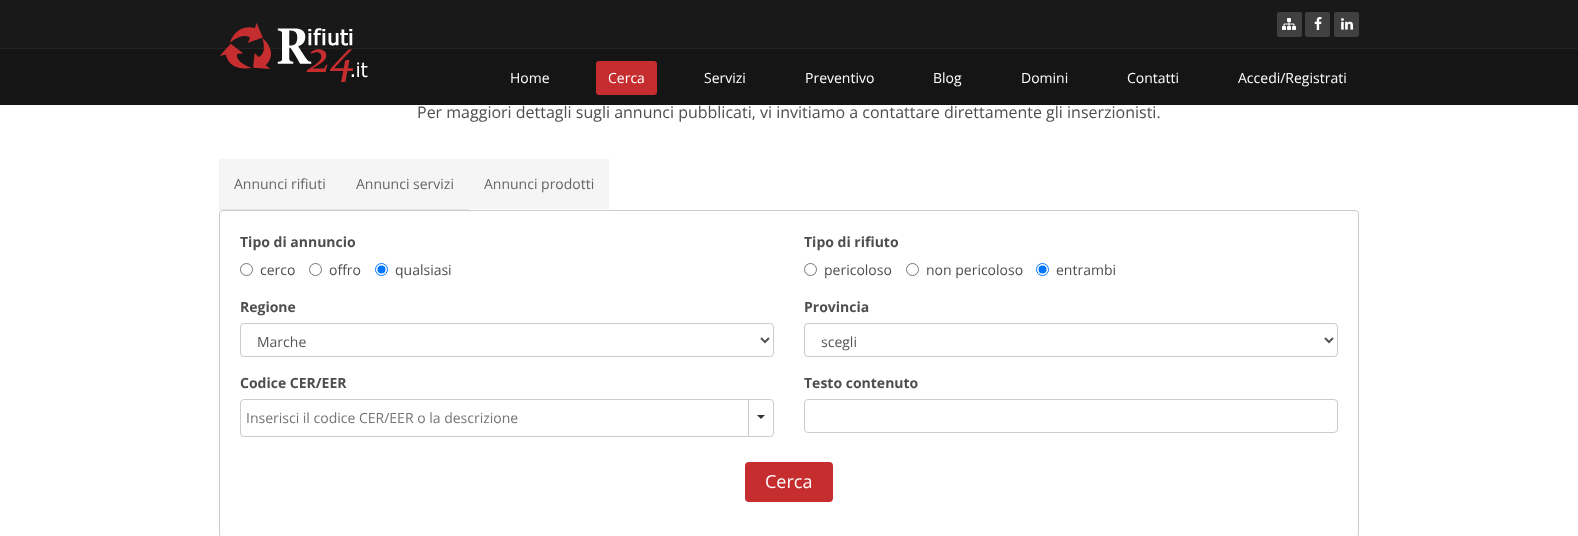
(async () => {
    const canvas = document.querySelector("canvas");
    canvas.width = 1578;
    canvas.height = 536;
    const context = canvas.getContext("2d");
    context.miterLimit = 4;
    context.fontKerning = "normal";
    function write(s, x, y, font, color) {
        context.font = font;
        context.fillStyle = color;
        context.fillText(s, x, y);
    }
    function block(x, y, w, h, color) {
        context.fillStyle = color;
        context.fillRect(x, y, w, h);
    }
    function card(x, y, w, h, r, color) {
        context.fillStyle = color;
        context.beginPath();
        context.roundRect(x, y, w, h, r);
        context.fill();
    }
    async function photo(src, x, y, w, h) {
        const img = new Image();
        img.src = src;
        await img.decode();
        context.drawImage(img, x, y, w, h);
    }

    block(0, 0, 1578, 536, "rgb(255, 255, 255)");
    block(0, 49, 1578, 56, "rgb(21, 21, 21)");
    block(0, 0, 1578, 48, "rgb(25, 25, 25)");
    block(0, 48, 1578, 1, "rgb(34, 34, 34)");
    card(1277, 12, 25, 25, 2, "rgb(64, 64, 64)");
    await photo("media/1.png", 1282, 18, 14, 12);
    card(1305, 12, 25, 25, 2, "rgb(64, 64, 64)");
    await photo("media/2.png", 1314, 17, 8, 13);
    card(1334, 12, 25, 25, 2, "rgb(64, 64, 64)");
    await photo("media/3.png", 1341, 18, 12, 12);
    await photo("media/4.png", 220, 23, 148, 60);
    write("Home", 510, 83, "14px Open Sans", "rgb(255, 255, 255)");
    card(596, 61, 61, 34, 3, "rgb(197, 45, 47)");
    write("Cerca", 608, 83, "14px Open Sans", "rgb(255, 255, 255)");
    write("Servizi", 704, 83, "14px Open Sans", "rgb(255, 255, 255)");
    write("Preventivo", 805, 83, "14px Open Sans", "rgb(255, 255, 255)");
    write("Blog", 933, 83, "14px Open Sans", "rgb(255, 255, 255)");
    write("Domini", 1021, 83, "14px Open Sans", "rgb(255, 255, 255)");
    write("Contatti", 1127, 83, "14px Open Sans", "rgb(255, 255, 255)");
    write("Accedi/Registrati", 1238, 83, "14px Open Sans", "rgb(255, 255, 255)");
    write("Per maggiori dettagli sugli annunci pubblicati, vi invitiamo a contattare direttamente gli inserzionisti.", 417, 118, "16px Open Sans", "rgb(78, 78, 78)");
    block(219, 209, 250, 1, "rgb(230, 230, 230)");
    block(219, 159, 390, 50, "rgb(245, 245, 245)");
    write("Annunci rifiuti", 234, 189, "14px Open Sans", "rgb(102, 102, 102)");
    write("Annunci servizi", 356, 189, "14px Open Sans", "rgb(102, 102, 102)");
    write("Annunci prodotti", 484, 189, "14px Open Sans", "rgb(102, 102, 102)");
    context.beginPath();
    context.roundRect(219.5, 210.5, 1139, 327, 3.5);
    context.strokeStyle = "rgb(204, 204, 204)";
    context.stroke();
    write("Tipo di annuncio", 240, 247, "bold 14px Open Sans", "rgb(78, 78, 78)");
    context.beginPath();
    context.arc(246.5, 269.5, 6, 0, Math.PI * 2);
    context.strokeStyle = "rgb(118, 118, 118)";
    context.stroke();
    write("cerco", 260, 275, "14px Open Sans", "rgb(78, 78, 78)");
    context.beginPath();
    context.arc(315.5, 269.5, 6, 0, Math.PI * 2);
    context.stroke();
    write("offro", 329, 275, "14px Open Sans", "rgb(78, 78, 78)");
    context.beginPath();
    context.arc(381.5, 269.5, 6, 0, Math.PI * 2);
    context.strokeStyle = "rgb(0, 117, 255)";
    context.stroke();
    context.fillStyle = "rgb(0, 117, 255)";
    context.beginPath();
    context.arc(381.5, 269.5, 4, 0, Math.PI * 2);
    context.fill();
    write("qualsiasi", 395, 275, "14px Open Sans", "rgb(78, 78, 78)");
    write("Tipo di rifiuto", 804, 247, "bold 14px Open Sans", "rgb(78, 78, 78)");
    context.beginPath();
    context.arc(810.5, 269.5, 6, 0, Math.PI * 2);
    context.strokeStyle = "rgb(118, 118, 118)";
    context.stroke();
    write("pericoloso", 824, 275, "14px Open Sans", "rgb(78, 78, 78)");
    context.beginPath();
    context.arc(912.5, 269.5, 6, 0, Math.PI * 2);
    context.stroke();
    write("non pericoloso", 926, 275, "14px Open Sans", "rgb(78, 78, 78)");
    context.beginPath();
    context.arc(1042.5, 269.5, 6, 0, Math.PI * 2);
    context.strokeStyle = "rgb(0, 117, 255)";
    context.stroke();
    context.fillStyle = "rgb(0, 117, 255)";
    context.beginPath();
    context.arc(1042.5, 269.5, 4, 0, Math.PI * 2);
    context.fill();
    write("entrambi", 1056, 275, "14px Open Sans", "rgb(78, 78, 78)");
    write("Regione", 240, 312, "bold 14px Open Sans", "rgb(78, 78, 78)");
    context.beginPath();
    context.roundRect(240.5, 323.5, 533, 33, 3.5);
    context.strokeStyle = "rgb(204, 204, 204)";
    context.stroke();
    context.beginPath();
    context.moveTo(761, 338);
    context.lineTo(765, 342);
    context.lineTo(769, 338);
    context.strokeStyle = "rgb(85, 85, 85)";
    context.lineWidth = 2;
    context.stroke();
    write("Marche", 257, 347, "14px Open Sans", "rgb(85, 85, 85)");
    write("Provincia", 804, 312, "bold 14px Open Sans", "rgb(78, 78, 78)");
    context.beginPath();
    context.roundRect(804.5, 323.5, 533, 33, 3.5);
    context.strokeStyle = "rgb(204, 204, 204)";
    context.lineWidth = 1;
    context.stroke();
    context.beginPath();
    context.moveTo(1325, 338);
    context.lineTo(1329, 342);
    context.lineTo(1333, 338);
    context.strokeStyle = "rgb(85, 85, 85)";
    context.lineWidth = 2;
    context.stroke();
    write("scegli", 821, 347, "14px Open Sans", "rgb(85, 85, 85)");
    write("Codice CER/EER", 240, 388, "bold 14px Open Sans", "rgb(78, 78, 78)");
    context.beginPath();
    context.roundRect(240.5, 399.5, 533, 37, 3.5);
    context.strokeStyle = "rgb(204, 204, 204)";
    context.lineWidth = 1;
    context.stroke();
    write("Inserisci il codice CER/EER o la descrizione", 246, 423, "14px Open Sans", "rgb(117, 117, 117)");
    block(748, 400, 1, 36, "rgb(204, 204, 204)");
    context.fillStyle = "rgb(51, 51, 51)";
    context.beginPath();
    context.moveTo(757, 415);
    context.lineTo(765, 415);
    context.lineTo(761, 419);
    context.closePath();
    context.fill();
    write("Testo contenuto", 804, 388, "bold 14px Open Sans", "rgb(78, 78, 78)");
    context.beginPath();
    context.roundRect(804.5, 399.5, 533, 33, 3.5);
    context.stroke();
    card(745, 462, 88, 40, 4, "rgb(197, 45, 47)");
    write("Cerca", 765, 488, "18px Open Sans", "rgb(255, 255, 255)");
})();
